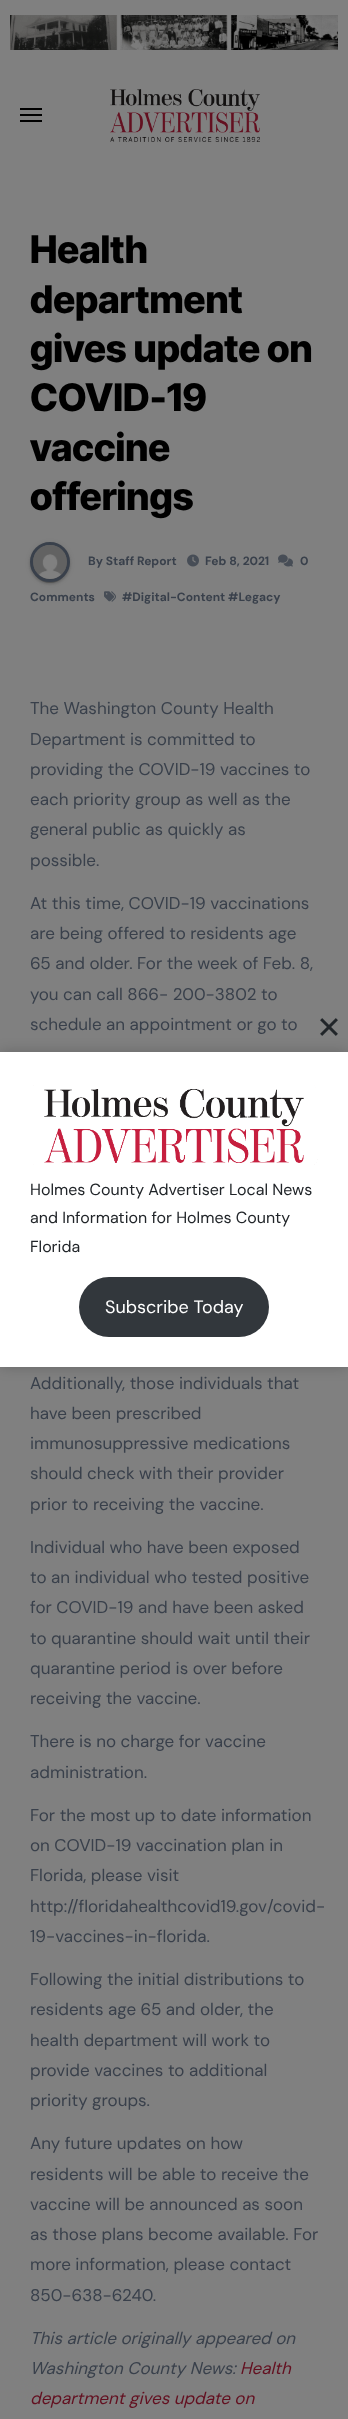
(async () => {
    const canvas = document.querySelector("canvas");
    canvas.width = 348;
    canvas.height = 2419;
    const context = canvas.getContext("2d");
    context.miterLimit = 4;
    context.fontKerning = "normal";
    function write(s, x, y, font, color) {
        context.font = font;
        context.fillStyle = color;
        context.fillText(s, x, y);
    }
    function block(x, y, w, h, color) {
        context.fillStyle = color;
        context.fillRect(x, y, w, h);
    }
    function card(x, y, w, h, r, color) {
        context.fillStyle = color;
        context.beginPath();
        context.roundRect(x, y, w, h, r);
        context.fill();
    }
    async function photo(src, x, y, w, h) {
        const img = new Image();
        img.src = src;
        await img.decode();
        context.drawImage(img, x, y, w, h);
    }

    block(0, 0, 348, 2419, "rgb(128, 128, 128)");
    await photo("media/1.png", 10, 15, 328, 35);
    block(20, 108, 22, 2, "rgb(0, 0, 0)");
    block(20, 114, 22, 2, "rgb(0, 0, 0)");
    block(20, 120, 22, 2, "rgb(0, 0, 0)");
    await photo("media/2.png", 110, 89, 150, 53);
    write("Health", 30, 263, "800 38px Inter Tight", "rgb(0, 0, 0)");
    write("department", 30, 313, "800 38px Inter Tight", "rgb(0, 0, 0)");
    write("gives update on", 30, 362, "800 38px Inter Tight", "rgb(0, 0, 0)");
    write("COVID-19", 30, 411, "800 38px Inter Tight", "rgb(0, 0, 0)");
    write("vaccine", 30, 461, "800 38px Inter Tight", "rgb(0, 0, 0)");
    write("offerings", 30, 510, "800 38px Inter Tight", "rgb(0, 0, 0)");
    context.fillStyle = "rgba(0, 0, 0, 0.12)";
    context.filter = "blur(2.5px)";
    context.beginPath();
    context.roundRect(30, 543, 40, 40, 20);
    context.fill();
    context.filter = "none";
    context.fillStyle = "rgba(0, 0, 0, 0.2)";
    context.filter = "blur(0.5px)";
    context.beginPath();
    context.roundRect(32, 547, 36, 36, 18);
    context.fill();
    context.filter = "none";
    context.fillStyle = "rgba(0, 0, 0, 0.14)";
    context.filter = "blur(1px)";
    context.beginPath();
    context.roundRect(30, 544, 40, 40, 20);
    context.fill();
    context.filter = "none";
    context.beginPath();
    context.arc(50, 562, 18.5, 0, Math.PI * 2);
    context.strokeStyle = "rgb(57, 64, 75)";
    context.lineWidth = 3;
    context.stroke();
    await photo("media/3.png", 33, 545, 34, 34);
    await photo("media/4.png", 278, 554, 15, 13);
    write("0", 300, 565, "bold 12px DM Sans", "rgb(57, 64, 75)");
    write("Comments", 30, 601, "bold 12px DM Sans", "rgb(57, 64, 75)");
    write("By Staff Report", 88, 565, "bold 12px DM Sans", "rgb(57, 64, 75)");
    await photo("media/5.png", 187, 554, 12, 13);
    write("Feb 8, 2021", 205, 565, "bold 12px DM Sans", "rgb(57, 64, 75)");
    await photo("media/6.png", 104, 591, 12, 11);
    write("#Digital-Content #Legacy", 122, 601, "bold 12px DM Sans", "rgb(57, 64, 75)");
    write("The Washington County Health", 30, 714, "17px DM Sans", "rgb(57, 64, 75)");
    write("Department is committed to", 30, 745, "17px DM Sans", "rgb(57, 64, 75)");
    write("providing the COVID-19 vaccines to", 30, 775, "17px DM Sans", "rgb(57, 64, 75)");
    write("each priority group as well as the", 30, 805, "17px DM Sans", "rgb(57, 64, 75)");
    write("general public as quickly as", 30, 835, "17px DM Sans", "rgb(57, 64, 75)");
    write("possible.", 30, 866, "17px DM Sans", "rgb(57, 64, 75)");
    write("At this time, COVID-19 vaccinations", 30, 909, "17px DM Sans", "rgb(57, 64, 75)");
    write("are being offered to residents age", 30, 939, "17px DM Sans", "rgb(57, 64, 75)");
    write("65 and older. For the week of Feb. 8,", 30, 969, "17px DM Sans", "rgb(57, 64, 75)");
    write("you can call 866- 200-3802 to", 30, 1000, "17px DM Sans", "rgb(57, 64, 75)");
    write("schedule an appointment or go to", 30, 1030, "17px DM Sans", "rgb(57, 64, 75)");
    write("Additionally, those individuals that", 30, 1389, "17px DM Sans", "rgb(57, 64, 75)");
    write("have been prescribed", 30, 1419, "17px DM Sans", "rgb(57, 64, 75)");
    write("immunosuppressive medications", 30, 1449, "17px DM Sans", "rgb(57, 64, 75)");
    write("should check with their provider", 30, 1479, "17px DM Sans", "rgb(57, 64, 75)");
    write("prior to receiving the vaccine.", 30, 1510, "17px DM Sans", "rgb(57, 64, 75)");
    write("Individual who have been exposed", 30, 1553, "17px DM Sans", "rgb(57, 64, 75)");
    write("to an individual who tested positive", 30, 1583, "17px DM Sans", "rgb(57, 64, 75)");
    write("for COVID-19 and have been asked", 30, 1613, "17px DM Sans", "rgb(57, 64, 75)");
    write("to quarantine should wait until their", 30, 1644, "17px DM Sans", "rgb(57, 64, 75)");
    write("quarantine period is over before", 30, 1674, "17px DM Sans", "rgb(57, 64, 75)");
    write("receiving the vaccine.", 30, 1704, "17px DM Sans", "rgb(57, 64, 75)");
    write("There is no charge for vaccine", 30, 1747, "17px DM Sans", "rgb(57, 64, 75)");
    write("administration.", 30, 1778, "17px DM Sans", "rgb(57, 64, 75)");
    write("For the most up to date information", 30, 1821, "17px DM Sans", "rgb(57, 64, 75)");
    write("on COVID-19 vaccination plan in", 30, 1851, "17px DM Sans", "rgb(57, 64, 75)");
    write("Florida, please visit", 30, 1881, "17px DM Sans", "rgb(57, 64, 75)");
    write("http://floridahealthcovid19.gov/covid-", 30, 1912, "17px DM Sans", "rgb(57, 64, 75)");
    write("19-vaccines-in-florida.", 30, 1942, "17px DM Sans", "rgb(57, 64, 75)");
    write("Following the initial distributions to", 30, 1985, "17px DM Sans", "rgb(57, 64, 75)");
    write("residents age 65 and older, the", 30, 2015, "17px DM Sans", "rgb(57, 64, 75)");
    write("health department will work to", 30, 2046, "17px DM Sans", "rgb(57, 64, 75)");
    write("provide vaccines to additional", 30, 2076, "17px DM Sans", "rgb(57, 64, 75)");
    write("priority groups.", 30, 2106, "17px DM Sans", "rgb(57, 64, 75)");
    write("Any future updates on how", 30, 2149, "17px DM Sans", "rgb(57, 64, 75)");
    write("residents will be able to receive the", 30, 2180, "17px DM Sans", "rgb(57, 64, 75)");
    write("vaccine will be announced as soon", 30, 2210, "17px DM Sans", "rgb(57, 64, 75)");
    write("as those plans become available. For", 30, 2240, "17px DM Sans", "rgb(57, 64, 75)");
    write("more information, please contact", 30, 2270, "17px DM Sans", "rgb(57, 64, 75)");
    write("850-638-6240.", 30, 2301, "17px DM Sans", "rgb(57, 64, 75)");
    write("This article originally appeared on", 30, 2344, "italic 17px DM Sans", "rgb(57, 64, 75)");
    write("Washington County News:", 30, 2374, "italic 17px DM Sans", "rgb(57, 64, 75)");
    write("Health", 240, 2374, "italic 17px DM Sans", "rgb(99, 16, 32)");
    write("department gives update on", 30, 2404, "italic 17px DM Sans", "rgb(99, 16, 32)");
    context.fillStyle = "rgba(0, 0, 0, 0.2)";
    context.filter = "blur(7px)";
    context.beginPath();
    context.rect(0, 1052, 348, 315);
    context.fill();
    context.filter = "none";
    block(0, 1052, 348, 315, "rgb(255, 255, 255)");
    await photo("media/7.png", 320, 1018, 18, 18);
    await photo("media/8.png", 33, 1085, 285, 80);
    write("Holmes County Advertiser Local News", 30, 1195, "16px DM Sans", "rgb(33, 37, 41)");
    write("and Information for Holmes County", 30, 1223, "16px DM Sans", "rgb(33, 37, 41)");
    write("Florida", 30, 1252, "16px DM Sans", "rgb(33, 37, 41)");
    card(79, 1277, 190, 60, 30, "rgb(50, 55, 60)");
    write("Subscribe Today", 105, 1313, "18px DM Sans", "rgb(255, 255, 255)");
})();
